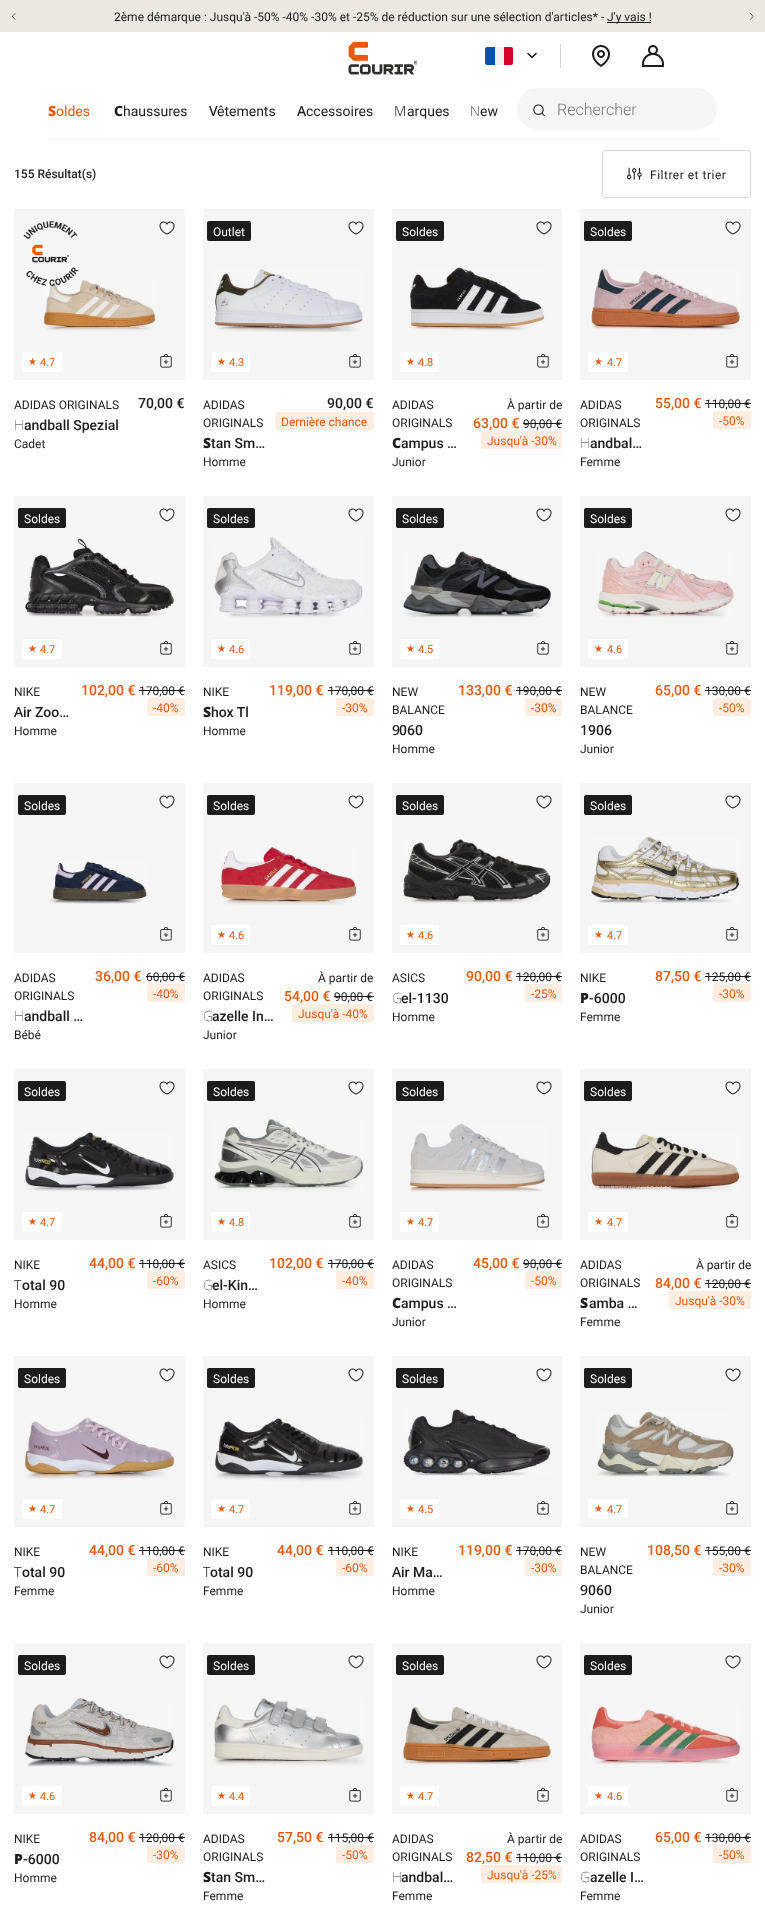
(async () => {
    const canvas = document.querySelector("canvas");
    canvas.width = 765;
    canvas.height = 1914;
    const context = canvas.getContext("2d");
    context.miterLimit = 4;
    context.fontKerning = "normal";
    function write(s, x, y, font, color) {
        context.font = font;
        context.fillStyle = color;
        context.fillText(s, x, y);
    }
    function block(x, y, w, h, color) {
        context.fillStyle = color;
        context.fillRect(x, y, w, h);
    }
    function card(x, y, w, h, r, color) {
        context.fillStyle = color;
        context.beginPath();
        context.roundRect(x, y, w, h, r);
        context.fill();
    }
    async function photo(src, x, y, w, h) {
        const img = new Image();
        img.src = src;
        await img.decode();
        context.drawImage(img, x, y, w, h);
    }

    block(0, 0, 765, 1914, "rgb(255, 255, 255)");
    block(0, 0, 765, 32, "rgb(236, 232, 225)");
    await photo("media/1.png", 12, 13, 4, 7);
    write("2ème démarque : Jusqu'à -50% -40% -30% et -25% de réduction sur une sélection d'articles* -", 114, 21, "12px Roboto", "rgb(28, 28, 28)");
    block(607, 22, 44, 1, "rgb(28, 28, 28)");
    write("J'y vais !", 607, 21, "12px Roboto", "rgb(28, 28, 28)");
    await photo("media/2.png", 750, 13, 4, 7);
    await photo("media/3.png", 348, 41, 69, 34);
    card(485, 47, 28, 18, 2, "rgb(240, 240, 240)");
    context.fillStyle = "rgb(0, 82, 180)";
    context.beginPath();
    context.roundRect(485, 47, 10, 18, [2, 0, 0, 2]);
    context.fill();
    context.fillStyle = "rgb(216, 0, 39)";
    context.beginPath();
    context.roundRect(504, 47, 9, 18, [0, 2, 2, 0]);
    context.fill();
    await photo("media/4.png", 527, 52, 10, 7);
    block(560, 44, 1, 24, "rgb(217, 217, 217)");
    await photo("media/5.png", 592, 45, 18, 22);
    await photo("media/6.png", 642, 45, 22, 22);
    write("S", 48, 116, "900 14px Noto Sans", "rgb(234, 88, 12)");
    write("oldes", 56, 116, "14px Roboto", "rgb(234, 88, 12)");
    write("C", 114, 116, "800 14px Noto Sans", "rgb(28, 28, 28)");
    write("haussures", 123, 116, "14px Roboto", "rgb(28, 28, 28)");
    write("V", 209, 116, "500 14px Noto Sans", "rgb(28, 28, 28)");
    write("êtements", 217, 116, "14px Roboto", "rgb(28, 28, 28)");
    write("A", 297, 116, "500 14px Noto Sans", "rgb(28, 28, 28)");
    write("ccessoires", 306, 116, "14px Roboto", "rgb(28, 28, 28)");
    write("M", 394, 116, "300 14px Noto Sans", "rgb(28, 28, 28)");
    write("arques", 407, 116, "14px Roboto", "rgb(28, 28, 28)");
    write("N", 470, 116, "200 14px Noto Sans", "rgb(28, 28, 28)");
    write("ew", 480, 116, "14px Roboto", "rgb(28, 28, 28)");
    card(517, 88, 200, 42, 21, "rgb(245, 245, 245)");
    await photo("media/7.png", 533, 104, 12, 12);
    write("Rechercher", 557, 115, "300 16px Roboto", "rgb(117, 117, 117)");
    block(49, 139, 669, 1, "rgb(245, 245, 245)");
    write("155 Résultat(s)", 14, 178, "500 12px Roboto", "rgb(28, 28, 28)");
    context.beginPath();
    context.roundRect(602.5, 150.5, 148, 47, 3.5);
    context.strokeStyle = "rgb(212, 212, 212)";
    context.stroke();
    await photo("media/8.png", 627, 167, 15, 13);
    context.letterSpacing = "0.5px";
    write("Filtrer et trier", 650, 179, "12px Roboto", "rgb(28, 28, 28)");
    block(14, 209, 171, 171, "rgb(245, 245, 245)");
    await photo("media/11.png", 43, 279, 114, 52);
    await photo("media/9.png", 23, 221, 56, 65);
    await photo("media/10.png", 159, 221, 16, 14);
    await photo("media/12.png", 160, 354, 12, 14);
    card(22, 352, 40, 20, 2, "rgb(255, 255, 255)");
    context.letterSpacing = "0px";
    write("★", 28, 365, "10px DejaVu Sans", "rgb(234, 88, 12)");
    write("4.7", 40, 366, "11px Roboto", "rgb(234, 88, 12)");
    write("ADIDAS ORIGINALS", 14, 409, "12px Roboto", "rgb(28, 28, 28)");
    write("H", 14, 430, "100 14px Noto Sans", "rgb(28, 28, 28)");
    write("andball Spezial", 24, 430, "500 14px Roboto", "rgb(28, 28, 28)");
    write("Cadet", 14, 448, "12px Roboto", "rgb(28, 28, 28)");
    write("70,00 €", 138, 408, "500 14px Roboto", "rgb(28, 28, 28)");
    block(203, 209, 171, 171, "rgb(245, 245, 245)");
    card(207, 221, 44, 20, 2, "rgb(28, 28, 28)");
    write("Outlet", 213, 236, "12px Roboto", "rgb(255, 255, 255)");
    await photo("media/10.png", 348, 221, 16, 14);
    await photo("media/13.png", 214, 269, 149, 64);
    await photo("media/12.png", 349, 354, 12, 14);
    card(211, 352, 39, 20, 2, "rgb(255, 255, 255)");
    write("★", 217, 365, "10px DejaVu Sans", "rgb(234, 88, 12)");
    write("4.3", 229, 366, "11px Roboto", "rgb(234, 88, 12)");
    write("ADIDAS", 203, 409, "12px Roboto", "rgb(28, 28, 28)");
    write("ORIGINALS", 203, 427, "12px Roboto", "rgb(28, 28, 28)");
    write("S", 203, 448, "900 14px Noto Sans", "rgb(28, 28, 28)");
    write("tan Sm…", 211, 448, "500 14px Roboto", "rgb(28, 28, 28)");
    write("Homme", 203, 466, "12px Roboto", "rgb(28, 28, 28)");
    write("90,00 €", 327, 408, "500 14px Roboto", "rgb(28, 28, 28)");
    card(275, 412, 99, 18, 2, "rgb(255, 237, 226)");
    write("Dernière chance", 281, 426, "12px Roboto", "rgb(234, 88, 12)");
    block(392, 209, 170, 171, "rgb(245, 245, 245)");
    card(396, 221, 48, 20, 2, "rgb(28, 28, 28)");
    write("Soldes", 402, 236, "12px Roboto", "rgb(255, 255, 255)");
    await photo("media/10.png", 536, 221, 16, 14);
    await photo("media/14.png", 410, 267, 135, 64);
    await photo("media/12.png", 537, 354, 12, 14);
    card(400, 352, 39, 20, 2, "rgb(255, 255, 255)");
    write("★", 406, 365, "10px DejaVu Sans", "rgb(234, 88, 12)");
    write("4.8", 418, 366, "11px Roboto", "rgb(234, 88, 12)");
    write("ADIDAS", 392, 409, "12px Roboto", "rgb(28, 28, 28)");
    write("ORIGINALS", 392, 427, "12px Roboto", "rgb(28, 28, 28)");
    write("C", 392, 448, "900 14px Noto Sans", "rgb(28, 28, 28)");
    write("ampus …", 401, 448, "500 14px Roboto", "rgb(28, 28, 28)");
    write("Junior", 392, 466, "12px Roboto", "rgb(28, 28, 28)");
    write("À partir de", 507, 409, "12px Roboto", "rgb(28, 28, 28)");
    write("63,00 €", 473, 428, "500 14px Roboto", "rgb(234, 88, 12)");
    write("90,00 €", 523, 428, "12px Roboto", "rgb(28, 28, 28)");
    block(523, 423, 39, 1, "rgb(28, 28, 28)");
    card(481, 431, 81, 18, 2, "rgb(255, 237, 226)");
    write("Jusqu'à -30%", 487, 445, "12px Roboto", "rgb(234, 88, 12)");
    block(580, 209, 171, 171, "rgb(245, 245, 245)");
    card(584, 221, 48, 20, 2, "rgb(28, 28, 28)");
    write("Soldes", 590, 236, "12px Roboto", "rgb(255, 255, 255)");
    await photo("media/10.png", 725, 221, 16, 14);
    await photo("media/15.png", 591, 268, 149, 62);
    await photo("media/12.png", 726, 354, 12, 14);
    card(588, 352, 40, 20, 2, "rgb(255, 255, 255)");
    write("★", 594, 365, "10px DejaVu Sans", "rgb(234, 88, 12)");
    write("4.7", 607, 366, "11px Roboto", "rgb(234, 88, 12)");
    write("ADIDAS", 580, 409, "12px Roboto", "rgb(28, 28, 28)");
    write("ORIGINALS", 580, 427, "12px Roboto", "rgb(28, 28, 28)");
    write("H", 580, 448, "100 14px Noto Sans", "rgb(28, 28, 28)");
    write("andbal…", 590, 448, "500 14px Roboto", "rgb(28, 28, 28)");
    write("Femme", 580, 466, "12px Roboto", "rgb(28, 28, 28)");
    write("55,00 €", 655, 408, "500 14px Roboto", "rgb(234, 88, 12)");
    write("110,00 €", 705, 408, "12px Roboto", "rgb(28, 28, 28)");
    block(705, 403, 46, 1, "rgb(28, 28, 28)");
    card(713, 411, 38, 18, 2, "rgb(255, 237, 226)");
    write("-50%", 719, 425, "12px Roboto", "rgb(234, 88, 12)");
    block(14, 496, 171, 171, "rgb(245, 245, 245)");
    card(18, 508, 48, 20, 2, "rgb(28, 28, 28)");
    write("Soldes", 24, 523, "12px Roboto", "rgb(255, 255, 255)");
    await photo("media/10.png", 159, 508, 16, 14);
    await photo("media/16.png", 25, 538, 150, 79);
    await photo("media/12.png", 160, 641, 12, 14);
    card(22, 639, 40, 20, 2, "rgb(255, 255, 255)");
    write("★", 28, 652, "10px DejaVu Sans", "rgb(234, 88, 12)");
    write("4.7", 40, 653, "11px Roboto", "rgb(234, 88, 12)");
    write("NIKE", 14, 696, "12px Roboto", "rgb(28, 28, 28)");
    write("A", 14, 717, "500 14px Noto Sans", "rgb(28, 28, 28)");
    write("ir Zoo…", 23, 717, "500 14px Roboto", "rgb(28, 28, 28)");
    write("Homme", 14, 735, "12px Roboto", "rgb(28, 28, 28)");
    write("102,00 €", 81, 695, "500 14px Roboto", "rgb(234, 88, 12)");
    write("170,00 €", 139, 695, "12px Roboto", "rgb(28, 28, 28)");
    block(139, 690, 46, 1, "rgb(28, 28, 28)");
    card(147, 698, 38, 18, 2, "rgb(255, 237, 226)");
    write("-40%", 153, 712, "12px Roboto", "rgb(234, 88, 12)");
    block(203, 496, 171, 171, "rgb(245, 245, 245)");
    card(207, 508, 48, 20, 2, "rgb(28, 28, 28)");
    write("Soldes", 213, 523, "12px Roboto", "rgb(255, 255, 255)");
    await photo("media/10.png", 348, 508, 16, 14);
    await photo("media/17.png", 214, 537, 149, 81);
    await photo("media/12.png", 349, 641, 12, 14);
    card(211, 639, 39, 20, 2, "rgb(255, 255, 255)");
    write("★", 217, 652, "10px DejaVu Sans", "rgb(234, 88, 12)");
    write("4.6", 229, 653, "11px Roboto", "rgb(234, 88, 12)");
    write("NIKE", 203, 696, "12px Roboto", "rgb(28, 28, 28)");
    write("S", 203, 717, "900 14px Noto Sans", "rgb(28, 28, 28)");
    write("hox Tl", 211, 717, "500 14px Roboto", "rgb(28, 28, 28)");
    write("Homme", 203, 735, "12px Roboto", "rgb(28, 28, 28)");
    write("119,00 €", 269, 695, "500 14px Roboto", "rgb(234, 88, 12)");
    write("170,00 €", 328, 695, "12px Roboto", "rgb(28, 28, 28)");
    block(328, 690, 46, 1, "rgb(28, 28, 28)");
    card(336, 698, 38, 18, 2, "rgb(255, 237, 226)");
    write("-30%", 342, 712, "12px Roboto", "rgb(234, 88, 12)");
    block(392, 496, 170, 171, "rgb(245, 245, 245)");
    card(396, 508, 48, 20, 2, "rgb(28, 28, 28)");
    write("Soldes", 402, 523, "12px Roboto", "rgb(255, 255, 255)");
    await photo("media/10.png", 536, 508, 16, 14);
    await photo("media/18.png", 403, 551, 148, 67);
    await photo("media/12.png", 537, 641, 12, 14);
    card(400, 639, 39, 20, 2, "rgb(255, 255, 255)");
    write("★", 406, 652, "10px DejaVu Sans", "rgb(234, 88, 12)");
    write("4.5", 418, 653, "11px Roboto", "rgb(234, 88, 12)");
    write("NEW", 392, 696, "12px Roboto", "rgb(28, 28, 28)");
    write("BALANCE", 392, 714, "12px Roboto", "rgb(28, 28, 28)");
    write("9", 392, 735, "500 14px Noto Sans", "rgb(28, 28, 28)");
    write("060", 399, 735, "500 14px Roboto", "rgb(28, 28, 28)");
    write("Homme", 392, 753, "12px Roboto", "rgb(28, 28, 28)");
    write("133,00 €", 458, 695, "500 14px Roboto", "rgb(234, 88, 12)");
    write("190,00 €", 516, 695, "12px Roboto", "rgb(28, 28, 28)");
    block(516, 690, 46, 1, "rgb(28, 28, 28)");
    card(525, 698, 37, 18, 2, "rgb(255, 237, 226)");
    write("-30%", 531, 712, "12px Roboto", "rgb(234, 88, 12)");
    block(580, 496, 171, 171, "rgb(245, 245, 245)");
    card(584, 508, 48, 20, 2, "rgb(28, 28, 28)");
    write("Soldes", 590, 523, "12px Roboto", "rgb(255, 255, 255)");
    await photo("media/10.png", 725, 508, 16, 14);
    await photo("media/19.png", 597, 551, 137, 68);
    await photo("media/12.png", 726, 641, 12, 14);
    card(588, 639, 40, 20, 2, "rgb(255, 255, 255)");
    write("★", 594, 652, "10px DejaVu Sans", "rgb(234, 88, 12)");
    write("4.6", 607, 653, "11px Roboto", "rgb(234, 88, 12)");
    write("NEW", 580, 696, "12px Roboto", "rgb(28, 28, 28)");
    write("BALANCE", 580, 714, "12px Roboto", "rgb(28, 28, 28)");
    write("1", 580, 735, "500 14px Noto Sans", "rgb(28, 28, 28)");
    write("906", 588, 735, "500 14px Roboto", "rgb(28, 28, 28)");
    write("Junior", 580, 753, "12px Roboto", "rgb(28, 28, 28)");
    write("65,00 €", 655, 695, "500 14px Roboto", "rgb(234, 88, 12)");
    write("130,00 €", 705, 695, "12px Roboto", "rgb(28, 28, 28)");
    block(705, 690, 46, 1, "rgb(28, 28, 28)");
    card(713, 698, 38, 18, 2, "rgb(255, 237, 226)");
    write("-50%", 719, 712, "12px Roboto", "rgb(234, 88, 12)");
    block(14, 783, 171, 170, "rgb(245, 245, 245)");
    card(18, 795, 48, 20, 2, "rgb(28, 28, 28)");
    write("Soldes", 24, 810, "12px Roboto", "rgb(255, 255, 255)");
    await photo("media/10.png", 159, 795, 16, 14);
    await photo("media/20.png", 49, 861, 98, 43);
    await photo("media/12.png", 160, 927, 12, 14);
    write("ADIDAS", 14, 982, "12px Roboto", "rgb(28, 28, 28)");
    write("ORIGINALS", 14, 1000, "12px Roboto", "rgb(28, 28, 28)");
    write("H", 14, 1021, "100 14px Noto Sans", "rgb(28, 28, 28)");
    write("andball …", 24, 1021, "500 14px Roboto", "rgb(28, 28, 28)");
    write("Bébé", 14, 1039, "12px Roboto", "rgb(28, 28, 28)");
    write("36,00 €", 95, 981, "500 14px Roboto", "rgb(234, 88, 12)");
    write("60,00 €", 146, 981, "12px Roboto", "rgb(28, 28, 28)");
    block(146, 976, 39, 1, "rgb(28, 28, 28)");
    card(147, 984, 38, 18, 2, "rgb(255, 237, 226)");
    write("-40%", 153, 998, "12px Roboto", "rgb(234, 88, 12)");
    block(203, 783, 171, 170, "rgb(245, 245, 245)");
    card(207, 795, 48, 20, 2, "rgb(28, 28, 28)");
    write("Soldes", 213, 810, "12px Roboto", "rgb(255, 255, 255)");
    await photo("media/10.png", 348, 795, 16, 14);
    await photo("media/21.png", 221, 846, 136, 60);
    await photo("media/12.png", 349, 927, 12, 14);
    card(211, 925, 39, 20, 2, "rgb(255, 255, 255)");
    write("★", 217, 938, "10px DejaVu Sans", "rgb(234, 88, 12)");
    write("4.6", 229, 939, "11px Roboto", "rgb(234, 88, 12)");
    write("ADIDAS", 203, 982, "12px Roboto", "rgb(28, 28, 28)");
    write("ORIGINALS", 203, 1000, "12px Roboto", "rgb(28, 28, 28)");
    write("G", 203, 1021, "100 14px Noto Sans", "rgb(28, 28, 28)");
    write("azelle In…", 212, 1021, "500 14px Roboto", "rgb(28, 28, 28)");
    write("Junior", 203, 1039, "12px Roboto", "rgb(28, 28, 28)");
    write("À partir de", 318, 982, "12px Roboto", "rgb(28, 28, 28)");
    write("54,00 €", 284, 1001, "500 14px Roboto", "rgb(234, 88, 12)");
    write("90,00 €", 334, 1001, "12px Roboto", "rgb(28, 28, 28)");
    block(334, 996, 40, 1, "rgb(28, 28, 28)");
    card(292, 1004, 82, 18, 2, "rgb(255, 237, 226)");
    write("Jusqu'à -40%", 298, 1018, "12px Roboto", "rgb(234, 88, 12)");
    block(392, 783, 170, 170, "rgb(245, 245, 245)");
    card(396, 795, 48, 20, 2, "rgb(28, 28, 28)");
    write("Soldes", 402, 810, "12px Roboto", "rgb(255, 255, 255)");
    await photo("media/10.png", 536, 795, 16, 14);
    await photo("media/22.png", 403, 839, 148, 65);
    await photo("media/12.png", 537, 927, 12, 14);
    card(400, 925, 39, 20, 2, "rgb(255, 255, 255)");
    write("★", 406, 938, "10px DejaVu Sans", "rgb(234, 88, 12)");
    write("4.6", 418, 939, "11px Roboto", "rgb(234, 88, 12)");
    write("ASICS", 392, 982, "12px Roboto", "rgb(28, 28, 28)");
    write("G", 392, 1003, "100 14px Noto Sans", "rgb(28, 28, 28)");
    write("el-1130", 401, 1003, "500 14px Roboto", "rgb(28, 28, 28)");
    write("Homme", 392, 1021, "12px Roboto", "rgb(28, 28, 28)");
    write("90,00 €", 466, 981, "500 14px Roboto", "rgb(234, 88, 12)");
    write("120,00 €", 516, 981, "12px Roboto", "rgb(28, 28, 28)");
    block(516, 976, 46, 1, "rgb(28, 28, 28)");
    card(525, 984, 37, 18, 2, "rgb(255, 237, 226)");
    write("-25%", 531, 998, "12px Roboto", "rgb(234, 88, 12)");
    block(580, 783, 171, 170, "rgb(245, 245, 245)");
    card(584, 795, 48, 20, 2, "rgb(28, 28, 28)");
    write("Soldes", 590, 810, "12px Roboto", "rgb(255, 255, 255)");
    await photo("media/10.png", 725, 795, 16, 14);
    await photo("media/23.png", 591, 836, 149, 68);
    await photo("media/12.png", 726, 927, 12, 14);
    card(588, 925, 40, 20, 2, "rgb(255, 255, 255)");
    write("★", 594, 938, "10px DejaVu Sans", "rgb(234, 88, 12)");
    write("4.7", 607, 939, "11px Roboto", "rgb(234, 88, 12)");
    write("NIKE", 580, 982, "12px Roboto", "rgb(28, 28, 28)");
    write("P", 580, 1003, "900 14px Noto Sans", "rgb(28, 28, 28)");
    write("-6000", 589, 1003, "500 14px Roboto", "rgb(28, 28, 28)");
    write("Femme", 580, 1021, "12px Roboto", "rgb(28, 28, 28)");
    write("87,50 €", 655, 981, "500 14px Roboto", "rgb(234, 88, 12)");
    write("125,00 €", 705, 981, "12px Roboto", "rgb(28, 28, 28)");
    block(705, 976, 46, 1, "rgb(28, 28, 28)");
    card(713, 984, 38, 18, 2, "rgb(255, 237, 226)");
    write("-30%", 719, 998, "12px Roboto", "rgb(234, 88, 12)");
    block(14, 1069, 171, 171, "rgb(245, 245, 245)");
    card(18, 1081, 48, 20, 2, "rgb(28, 28, 28)");
    write("Soldes", 24, 1096, "12px Roboto", "rgb(255, 255, 255)");
    await photo("media/10.png", 159, 1081, 16, 14);
    await photo("media/24.png", 25, 1132, 149, 59);
    await photo("media/12.png", 160, 1214, 12, 14);
    card(22, 1212, 40, 20, 2, "rgb(255, 255, 255)");
    write("★", 28, 1225, "10px DejaVu Sans", "rgb(234, 88, 12)");
    write("4.7", 40, 1226, "11px Roboto", "rgb(234, 88, 12)");
    write("NIKE", 14, 1269, "12px Roboto", "rgb(28, 28, 28)");
    write("T", 14, 1290, "300 14px Noto Sans", "rgb(28, 28, 28)");
    write("otal 90", 22, 1290, "500 14px Roboto", "rgb(28, 28, 28)");
    write("Homme", 14, 1308, "12px Roboto", "rgb(28, 28, 28)");
    write("44,00 €", 89, 1268, "500 14px Roboto", "rgb(234, 88, 12)");
    write("110,00 €", 139, 1268, "12px Roboto", "rgb(28, 28, 28)");
    block(139, 1263, 46, 1, "rgb(28, 28, 28)");
    card(147, 1271, 38, 18, 2, "rgb(255, 237, 226)");
    write("-60%", 153, 1285, "12px Roboto", "rgb(234, 88, 12)");
    block(203, 1069, 171, 171, "rgb(245, 245, 245)");
    card(207, 1081, 48, 20, 2, "rgb(28, 28, 28)");
    write("Soldes", 213, 1096, "12px Roboto", "rgb(255, 255, 255)");
    await photo("media/10.png", 348, 1081, 16, 14);
    await photo("media/25.png", 214, 1119, 150, 73);
    await photo("media/12.png", 349, 1214, 12, 14);
    card(211, 1212, 39, 20, 2, "rgb(255, 255, 255)");
    write("★", 217, 1225, "10px DejaVu Sans", "rgb(234, 88, 12)");
    write("4.8", 229, 1226, "11px Roboto", "rgb(234, 88, 12)");
    write("ASICS", 203, 1269, "12px Roboto", "rgb(28, 28, 28)");
    write("G", 203, 1290, "100 14px Noto Sans", "rgb(28, 28, 28)");
    write("el-Kin…", 212, 1290, "500 14px Roboto", "rgb(28, 28, 28)");
    write("Homme", 203, 1308, "12px Roboto", "rgb(28, 28, 28)");
    write("102,00 €", 269, 1268, "500 14px Roboto", "rgb(234, 88, 12)");
    write("170,00 €", 328, 1268, "12px Roboto", "rgb(28, 28, 28)");
    block(328, 1263, 46, 1, "rgb(28, 28, 28)");
    card(336, 1271, 38, 18, 2, "rgb(255, 237, 226)");
    write("-40%", 342, 1285, "12px Roboto", "rgb(234, 88, 12)");
    block(392, 1069, 170, 171, "rgb(245, 245, 245)");
    card(396, 1081, 48, 20, 2, "rgb(28, 28, 28)");
    write("Soldes", 402, 1096, "12px Roboto", "rgb(255, 255, 255)");
    await photo("media/10.png", 536, 1081, 16, 14);
    await photo("media/26.png", 409, 1123, 137, 69);
    await photo("media/12.png", 537, 1214, 12, 14);
    card(400, 1212, 39, 20, 2, "rgb(255, 255, 255)");
    write("★", 406, 1225, "10px DejaVu Sans", "rgb(234, 88, 12)");
    write("4.7", 418, 1226, "11px Roboto", "rgb(234, 88, 12)");
    write("ADIDAS", 392, 1269, "12px Roboto", "rgb(28, 28, 28)");
    write("ORIGINALS", 392, 1287, "12px Roboto", "rgb(28, 28, 28)");
    write("C", 392, 1308, "900 14px Noto Sans", "rgb(28, 28, 28)");
    write("ampus …", 401, 1308, "500 14px Roboto", "rgb(28, 28, 28)");
    write("Junior", 392, 1326, "12px Roboto", "rgb(28, 28, 28)");
    write("45,00 €", 473, 1268, "500 14px Roboto", "rgb(234, 88, 12)");
    write("90,00 €", 523, 1268, "12px Roboto", "rgb(28, 28, 28)");
    block(523, 1263, 39, 1, "rgb(28, 28, 28)");
    card(525, 1271, 37, 18, 2, "rgb(255, 237, 226)");
    write("-50%", 531, 1285, "12px Roboto", "rgb(234, 88, 12)");
    block(580, 1069, 171, 171, "rgb(245, 245, 245)");
    card(584, 1081, 48, 20, 2, "rgb(28, 28, 28)");
    write("Soldes", 590, 1096, "12px Roboto", "rgb(255, 255, 255)");
    await photo("media/10.png", 725, 1081, 16, 14);
    await photo("media/27.png", 589, 1131, 151, 61);
    await photo("media/12.png", 726, 1214, 12, 14);
    card(588, 1212, 40, 20, 2, "rgb(255, 255, 255)");
    write("★", 594, 1225, "10px DejaVu Sans", "rgb(234, 88, 12)");
    write("4.7", 607, 1226, "11px Roboto", "rgb(234, 88, 12)");
    write("ADIDAS", 580, 1269, "12px Roboto", "rgb(28, 28, 28)");
    write("ORIGINALS", 580, 1287, "12px Roboto", "rgb(28, 28, 28)");
    write("S", 580, 1308, "900 14px Noto Sans", "rgb(28, 28, 28)");
    write("amba …", 589, 1308, "500 14px Roboto", "rgb(28, 28, 28)");
    write("Femme", 580, 1326, "12px Roboto", "rgb(28, 28, 28)");
    write("À partir de", 696, 1269, "12px Roboto", "rgb(28, 28, 28)");
    write("84,00 €", 655, 1288, "500 14px Roboto", "rgb(234, 88, 12)");
    write("120,00 €", 705, 1288, "12px Roboto", "rgb(28, 28, 28)");
    block(705, 1283, 46, 1, "rgb(28, 28, 28)");
    card(669, 1291, 82, 18, 2, "rgb(255, 237, 226)");
    write("Jusqu'à -30%", 675, 1305, "12px Roboto", "rgb(234, 88, 12)");
    block(14, 1356, 171, 171, "rgb(245, 245, 245)");
    card(18, 1368, 48, 20, 2, "rgb(28, 28, 28)");
    write("Soldes", 24, 1383, "12px Roboto", "rgb(255, 255, 255)");
    await photo("media/10.png", 159, 1368, 16, 14);
    await photo("media/28.png", 23, 1417, 152, 62);
    await photo("media/12.png", 160, 1501, 12, 14);
    card(22, 1499, 40, 20, 2, "rgb(255, 255, 255)");
    write("★", 28, 1512, "10px DejaVu Sans", "rgb(234, 88, 12)");
    write("4.7", 40, 1513, "11px Roboto", "rgb(234, 88, 12)");
    write("NIKE", 14, 1556, "12px Roboto", "rgb(28, 28, 28)");
    write("T", 14, 1577, "300 14px Noto Sans", "rgb(28, 28, 28)");
    write("otal 90", 22, 1577, "500 14px Roboto", "rgb(28, 28, 28)");
    write("Femme", 14, 1595, "12px Roboto", "rgb(28, 28, 28)");
    write("44,00 €", 89, 1555, "500 14px Roboto", "rgb(234, 88, 12)");
    write("110,00 €", 139, 1555, "12px Roboto", "rgb(28, 28, 28)");
    block(139, 1550, 46, 1, "rgb(28, 28, 28)");
    card(147, 1558, 38, 18, 2, "rgb(255, 237, 226)");
    write("-60%", 153, 1572, "12px Roboto", "rgb(234, 88, 12)");
    block(203, 1356, 171, 171, "rgb(245, 245, 245)");
    card(207, 1368, 48, 20, 2, "rgb(28, 28, 28)");
    write("Soldes", 213, 1383, "12px Roboto", "rgb(255, 255, 255)");
    await photo("media/10.png", 348, 1368, 16, 14);
    await photo("media/29.png", 215, 1418, 149, 64);
    await photo("media/12.png", 349, 1501, 12, 14);
    card(211, 1499, 39, 20, 2, "rgb(255, 255, 255)");
    write("★", 217, 1512, "10px DejaVu Sans", "rgb(234, 88, 12)");
    write("4.7", 229, 1513, "11px Roboto", "rgb(234, 88, 12)");
    write("NIKE", 203, 1556, "12px Roboto", "rgb(28, 28, 28)");
    write("T", 203, 1577, "300 14px Noto Sans", "rgb(28, 28, 28)");
    write("otal 90", 210, 1577, "500 14px Roboto", "rgb(28, 28, 28)");
    write("Femme", 203, 1595, "12px Roboto", "rgb(28, 28, 28)");
    write("44,00 €", 277, 1555, "500 14px Roboto", "rgb(234, 88, 12)");
    write("110,00 €", 328, 1555, "12px Roboto", "rgb(28, 28, 28)");
    block(328, 1550, 46, 1, "rgb(28, 28, 28)");
    card(336, 1558, 38, 18, 2, "rgb(255, 237, 226)");
    write("-60%", 342, 1572, "12px Roboto", "rgb(234, 88, 12)");
    block(392, 1356, 170, 171, "rgb(245, 245, 245)");
    card(396, 1368, 48, 20, 2, "rgb(28, 28, 28)");
    write("Soldes", 402, 1383, "12px Roboto", "rgb(255, 255, 255)");
    await photo("media/10.png", 536, 1368, 16, 14);
    await photo("media/30.png", 403, 1409, 148, 67);
    await photo("media/12.png", 537, 1501, 12, 14);
    card(400, 1499, 39, 20, 2, "rgb(255, 255, 255)");
    write("★", 406, 1512, "10px DejaVu Sans", "rgb(234, 88, 12)");
    write("4.5", 418, 1513, "11px Roboto", "rgb(234, 88, 12)");
    write("NIKE", 392, 1556, "12px Roboto", "rgb(28, 28, 28)");
    write("A", 392, 1577, "500 14px Noto Sans", "rgb(28, 28, 28)");
    write("ir Ma…", 401, 1577, "500 14px Roboto", "rgb(28, 28, 28)");
    write("Homme", 392, 1595, "12px Roboto", "rgb(28, 28, 28)");
    write("119,00 €", 458, 1555, "500 14px Roboto", "rgb(234, 88, 12)");
    write("170,00 €", 516, 1555, "12px Roboto", "rgb(28, 28, 28)");
    block(516, 1550, 46, 1, "rgb(28, 28, 28)");
    card(525, 1558, 37, 18, 2, "rgb(255, 237, 226)");
    write("-30%", 531, 1572, "12px Roboto", "rgb(234, 88, 12)");
    block(580, 1356, 171, 171, "rgb(245, 245, 245)");
    card(584, 1368, 48, 20, 2, "rgb(28, 28, 28)");
    write("Soldes", 590, 1383, "12px Roboto", "rgb(255, 255, 255)");
    await photo("media/10.png", 725, 1368, 16, 14);
    await photo("media/31.png", 597, 1411, 138, 66);
    await photo("media/12.png", 726, 1501, 12, 14);
    card(588, 1499, 40, 20, 2, "rgb(255, 255, 255)");
    write("★", 594, 1512, "10px DejaVu Sans", "rgb(234, 88, 12)");
    write("4.7", 607, 1513, "11px Roboto", "rgb(234, 88, 12)");
    write("NEW", 580, 1556, "12px Roboto", "rgb(28, 28, 28)");
    write("BALANCE", 580, 1574, "12px Roboto", "rgb(28, 28, 28)");
    write("9", 580, 1595, "500 14px Noto Sans", "rgb(28, 28, 28)");
    write("060", 588, 1595, "500 14px Roboto", "rgb(28, 28, 28)");
    write("Junior", 580, 1613, "12px Roboto", "rgb(28, 28, 28)");
    write("108,50 €", 647, 1555, "500 14px Roboto", "rgb(234, 88, 12)");
    write("155,00 €", 705, 1555, "12px Roboto", "rgb(28, 28, 28)");
    block(705, 1550, 46, 1, "rgb(28, 28, 28)");
    card(713, 1558, 38, 18, 2, "rgb(255, 237, 226)");
    write("-30%", 719, 1572, "12px Roboto", "rgb(234, 88, 12)");
    block(14, 1643, 171, 171, "rgb(245, 245, 245)");
    card(18, 1655, 48, 20, 2, "rgb(28, 28, 28)");
    write("Soldes", 24, 1670, "12px Roboto", "rgb(255, 255, 255)");
    await photo("media/10.png", 159, 1655, 16, 14);
    await photo("media/32.png", 25, 1697, 149, 70);
    await photo("media/12.png", 160, 1788, 12, 14);
    card(22, 1786, 40, 20, 2, "rgb(255, 255, 255)");
    write("★", 28, 1799, "10px DejaVu Sans", "rgb(234, 88, 12)");
    write("4.6", 40, 1800, "11px Roboto", "rgb(234, 88, 12)");
    write("NIKE", 14, 1843, "12px Roboto", "rgb(28, 28, 28)");
    write("P", 14, 1864, "900 14px Noto Sans", "rgb(28, 28, 28)");
    write("-6000", 23, 1864, "500 14px Roboto", "rgb(28, 28, 28)");
    write("Homme", 14, 1882, "12px Roboto", "rgb(28, 28, 28)");
    write("84,00 €", 89, 1842, "500 14px Roboto", "rgb(234, 88, 12)");
    write("120,00 €", 139, 1842, "12px Roboto", "rgb(28, 28, 28)");
    block(139, 1837, 46, 1, "rgb(28, 28, 28)");
    card(147, 1845, 38, 18, 2, "rgb(255, 237, 226)");
    write("-30%", 153, 1859, "12px Roboto", "rgb(234, 88, 12)");
    block(203, 1643, 171, 171, "rgb(245, 245, 245)");
    card(207, 1655, 48, 20, 2, "rgb(28, 28, 28)");
    write("Soldes", 213, 1670, "12px Roboto", "rgb(255, 255, 255)");
    await photo("media/10.png", 348, 1655, 16, 14);
    await photo("media/33.png", 213, 1698, 152, 68);
    await photo("media/12.png", 349, 1788, 12, 14);
    card(211, 1786, 39, 20, 2, "rgb(255, 255, 255)");
    write("★", 217, 1799, "10px DejaVu Sans", "rgb(234, 88, 12)");
    write("4.4", 229, 1800, "11px Roboto", "rgb(234, 88, 12)");
    write("ADIDAS", 203, 1843, "12px Roboto", "rgb(28, 28, 28)");
    write("ORIGINALS", 203, 1861, "12px Roboto", "rgb(28, 28, 28)");
    write("S", 203, 1882, "900 14px Noto Sans", "rgb(28, 28, 28)");
    write("tan Sm…", 211, 1882, "500 14px Roboto", "rgb(28, 28, 28)");
    write("Femme", 203, 1900, "12px Roboto", "rgb(28, 28, 28)");
    write("57,50 €", 277, 1842, "500 14px Roboto", "rgb(234, 88, 12)");
    write("115,00 €", 328, 1842, "12px Roboto", "rgb(28, 28, 28)");
    block(328, 1837, 46, 1, "rgb(28, 28, 28)");
    card(336, 1845, 38, 18, 2, "rgb(255, 237, 226)");
    write("-50%", 342, 1859, "12px Roboto", "rgb(234, 88, 12)");
    block(392, 1643, 170, 171, "rgb(245, 245, 245)");
    card(396, 1655, 48, 20, 2, "rgb(28, 28, 28)");
    write("Soldes", 402, 1670, "12px Roboto", "rgb(255, 255, 255)");
    await photo("media/10.png", 536, 1655, 16, 14);
    await photo("media/34.png", 402, 1706, 149, 59);
    await photo("media/12.png", 537, 1788, 12, 14);
    card(400, 1786, 39, 20, 2, "rgb(255, 255, 255)");
    write("★", 406, 1799, "10px DejaVu Sans", "rgb(234, 88, 12)");
    write("4.7", 418, 1800, "11px Roboto", "rgb(234, 88, 12)");
    write("ADIDAS", 392, 1843, "12px Roboto", "rgb(28, 28, 28)");
    write("ORIGINALS", 392, 1861, "12px Roboto", "rgb(28, 28, 28)");
    write("H", 392, 1882, "100 14px Noto Sans", "rgb(28, 28, 28)");
    write("andbal…", 401, 1882, "500 14px Roboto", "rgb(28, 28, 28)");
    write("Femme", 392, 1900, "12px Roboto", "rgb(28, 28, 28)");
    write("À partir de", 507, 1843, "12px Roboto", "rgb(28, 28, 28)");
    write("82,50 €", 466, 1862, "500 14px Roboto", "rgb(234, 88, 12)");
    write("110,00 €", 516, 1862, "12px Roboto", "rgb(28, 28, 28)");
    block(516, 1857, 46, 1, "rgb(28, 28, 28)");
    card(481, 1865, 81, 18, 2, "rgb(255, 237, 226)");
    write("Jusqu'à -25%", 487, 1879, "12px Roboto", "rgb(234, 88, 12)");
    block(580, 1643, 171, 171, "rgb(245, 245, 245)");
    card(584, 1655, 48, 20, 2, "rgb(28, 28, 28)");
    write("Soldes", 590, 1670, "12px Roboto", "rgb(255, 255, 255)");
    await photo("media/10.png", 725, 1655, 16, 14);
    await photo("media/35.png", 589, 1706, 152, 59);
    await photo("media/12.png", 726, 1788, 12, 14);
    card(588, 1786, 40, 20, 2, "rgb(255, 255, 255)");
    write("★", 594, 1799, "10px DejaVu Sans", "rgb(234, 88, 12)");
    write("4.6", 607, 1800, "11px Roboto", "rgb(234, 88, 12)");
    write("ADIDAS", 580, 1843, "12px Roboto", "rgb(28, 28, 28)");
    write("ORIGINALS", 580, 1861, "12px Roboto", "rgb(28, 28, 28)");
    write("G", 580, 1882, "100 14px Noto Sans", "rgb(28, 28, 28)");
    write("azelle I…", 590, 1882, "500 14px Roboto", "rgb(28, 28, 28)");
    write("Femme", 580, 1900, "12px Roboto", "rgb(28, 28, 28)");
    write("65,00 €", 655, 1842, "500 14px Roboto", "rgb(234, 88, 12)");
    write("130,00 €", 705, 1842, "12px Roboto", "rgb(28, 28, 28)");
    block(705, 1837, 46, 1, "rgb(28, 28, 28)");
    card(713, 1845, 38, 18, 2, "rgb(255, 237, 226)");
    write("-50%", 719, 1859, "12px Roboto", "rgb(234, 88, 12)");
})();
